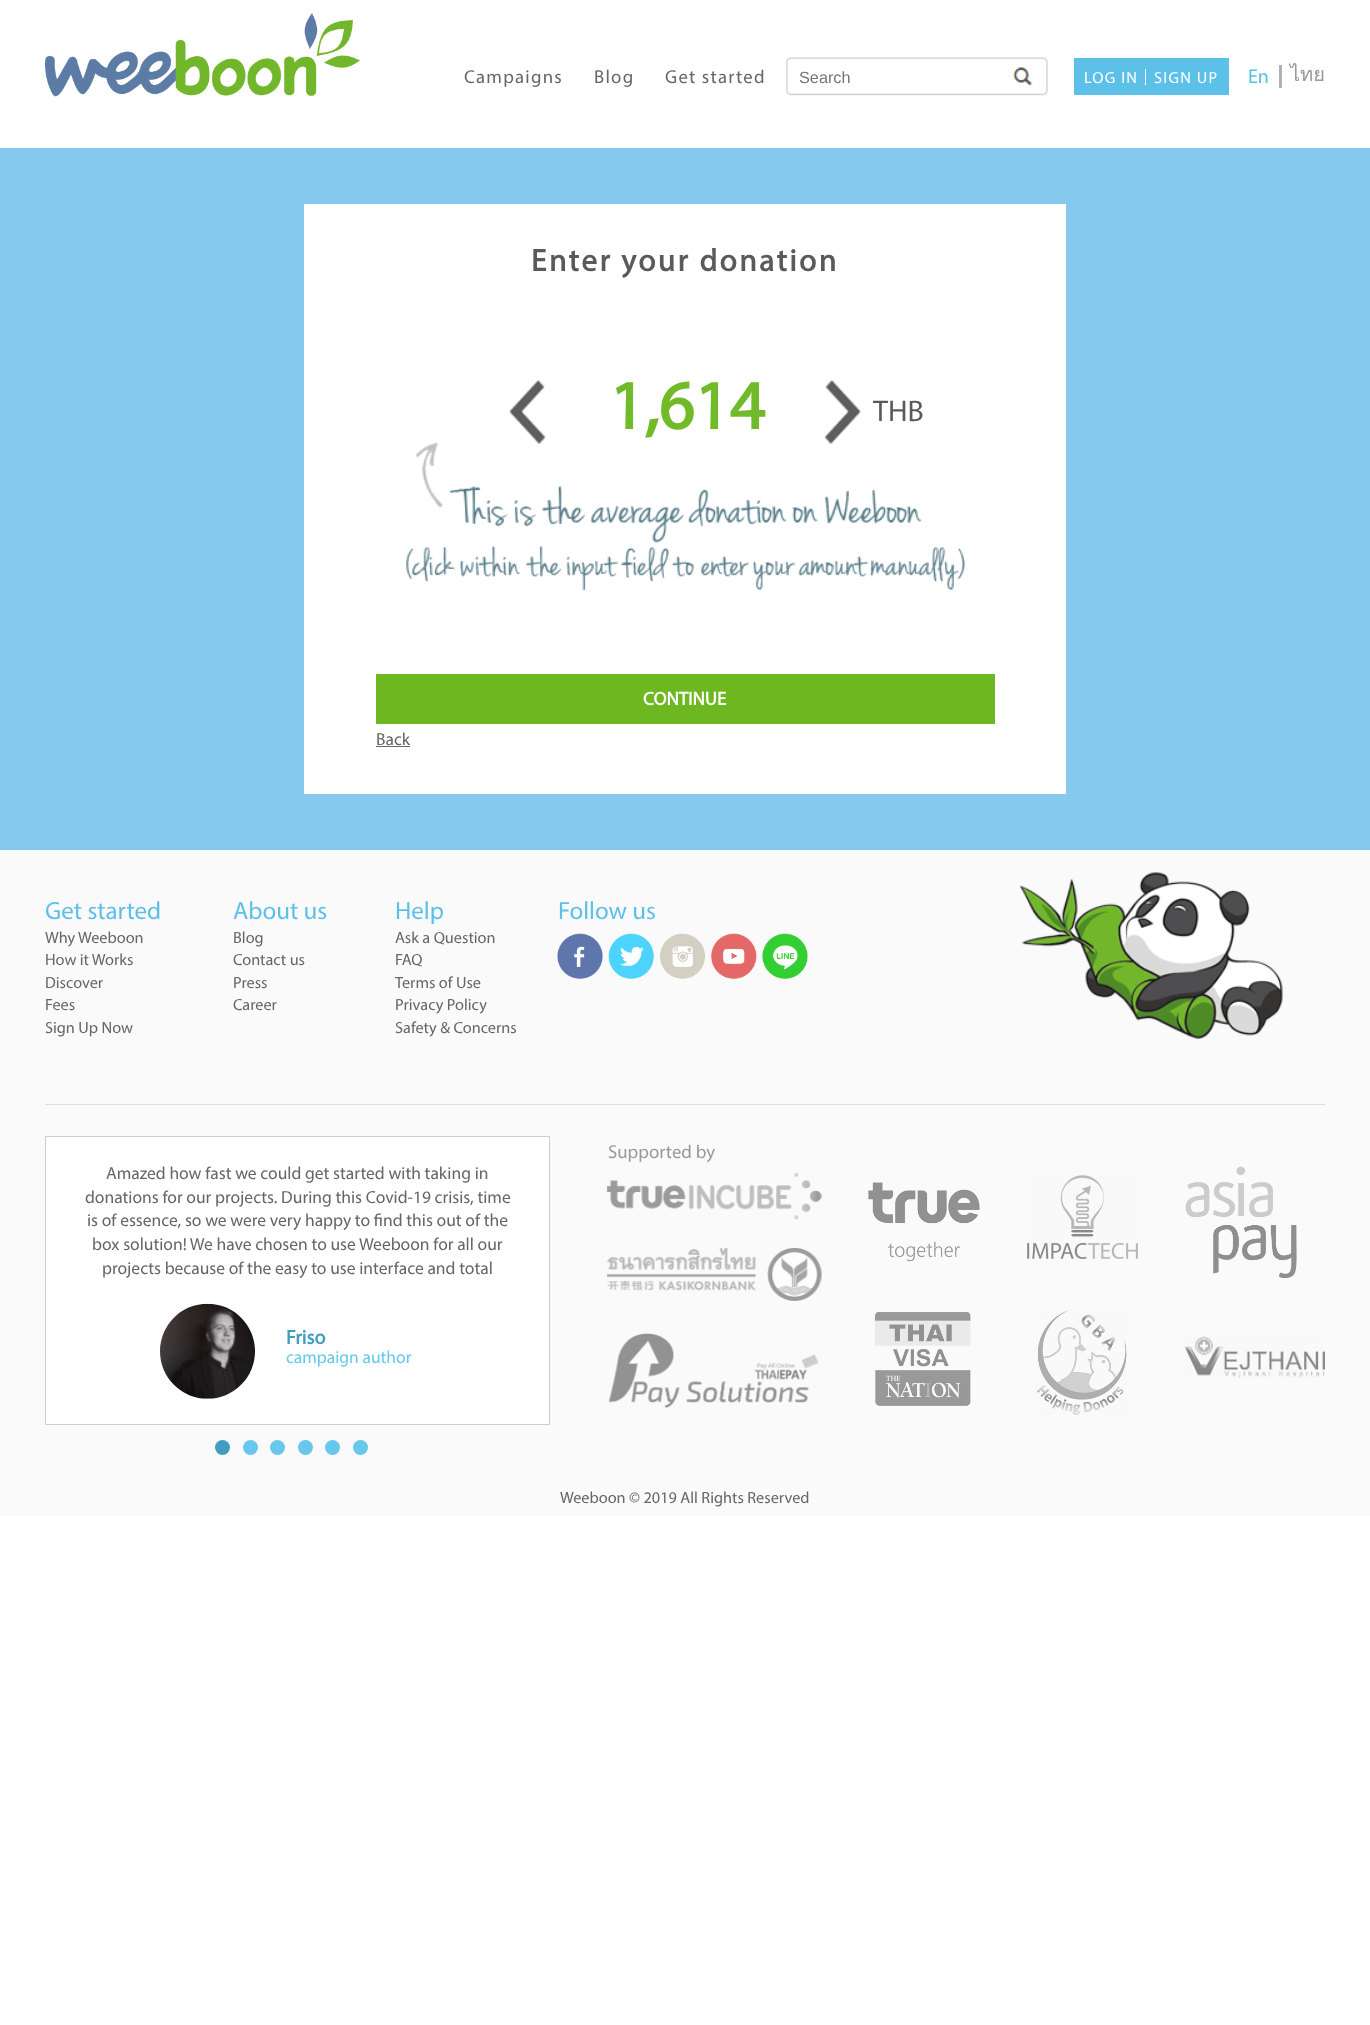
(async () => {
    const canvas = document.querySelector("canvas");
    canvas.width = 1370;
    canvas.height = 2025;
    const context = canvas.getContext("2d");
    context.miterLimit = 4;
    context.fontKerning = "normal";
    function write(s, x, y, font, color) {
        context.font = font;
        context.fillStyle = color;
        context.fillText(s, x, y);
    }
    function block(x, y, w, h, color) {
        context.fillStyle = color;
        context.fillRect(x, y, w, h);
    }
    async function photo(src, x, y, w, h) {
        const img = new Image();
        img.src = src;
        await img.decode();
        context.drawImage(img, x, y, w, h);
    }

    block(0, 0, 1370, 2025, "rgb(255, 255, 255)");
    await photo("media/1.png", 45, 13, 315, 84);
    context.letterSpacing = "1.25px";
    write("Campaigns", 464, 83, "18.75px Myriad", "rgb(102, 102, 102)");
    write("Blog", 594, 83, "18.75px Myriad", "rgb(102, 102, 102)");
    write("Get started", 665, 83, "18.75px Myriad", "rgb(102, 102, 102)");
    await photo("media/2.png", 786, 57, 262, 39);
    context.letterSpacing = "0px";
    write("Search", 799, 83, "16.25px Liberation Sans", "rgb(117, 117, 117)");
    block(1074, 58, 155, 37, "rgb(93, 192, 233)");
    context.letterSpacing = "1.25px";
    write("LOG IN", 1084, 83, "16.25px Myriad", "rgb(255, 255, 255)");
    block(1145, 69, 1, 16, "rgb(255, 255, 255)");
    write("SIGN UP", 1154, 83, "16.25px Myriad", "rgb(255, 255, 255)");
    context.letterSpacing = "0px";
    write("En", 1248, 83, "20px Myriad", "rgb(90, 193, 226)");
    block(1279, 65, 3, 23, "rgb(176, 176, 176)");
    write("ไทย", 1290, 81, "20px Loma", "rgb(153, 153, 153)");
    block(0, 148, 1370, 702, "rgb(133, 201, 238)");
    block(304, 204, 762, 590, "rgb(255, 255, 255)");
    context.letterSpacing = "2.5px";
    write("Enter your donation", 531, 271, "bold 31.25px Myriad", "rgb(90, 90, 90)");
    await photo("media/3.png", 509, 380, 37, 64);
    context.letterSpacing = "0px";
    write("1,614", 609, 429, "bold 69px Myriad", "rgb(113, 186, 42)");
    await photo("media/5.png", 406, 442, 560, 149);
    await photo("media/4.png", 824, 380, 37, 64);
    write("THB", 873, 421, "30px Myriad", "rgb(90, 90, 90)");
    block(376, 674, 619, 50, "rgb(109, 184, 32)");
    write("CONTINUE", 643, 705, "bold 18.75px Myriad", "rgb(255, 255, 255)");
    write("Back", 376, 745, "17.5px Myriad", "rgb(102, 102, 102)");
    block(376, 746, 34, 1, "rgb(102, 102, 102)");
    block(0, 850, 1370, 666, "rgb(250, 250, 250)");
    write("Get started", 45, 919, "25px Myriad", "rgb(93, 192, 233)");
    write("Why Weeboon", 45, 943, "16.25px Myriad", "rgb(102, 102, 102)");
    write("How it Works", 45, 965, "16.25px Myriad", "rgb(102, 102, 102)");
    write("Discover", 45, 988, "16.25px Myriad", "rgb(102, 102, 102)");
    write("Fees", 45, 1010, "16.25px Myriad", "rgb(102, 102, 102)");
    write("Sign Up Now", 45, 1033, "16.25px Myriad", "rgb(102, 102, 102)");
    write("About us", 233, 919, "25px Myriad", "rgb(93, 192, 233)");
    write("Blog", 233, 943, "16.25px Myriad", "rgb(102, 102, 102)");
    write("Contact us", 233, 965, "16.25px Myriad", "rgb(102, 102, 102)");
    write("Press", 233, 988, "16.25px Myriad", "rgb(102, 102, 102)");
    write("Career", 233, 1010, "16.25px Myriad", "rgb(102, 102, 102)");
    write("Help", 395, 919, "25px Myriad", "rgb(93, 192, 233)");
    write("Ask a Question", 395, 943, "16.25px Myriad", "rgb(102, 102, 102)");
    write("FAQ", 395, 965, "16.25px Myriad", "rgb(102, 102, 102)");
    write("Terms of Use", 395, 988, "16.25px Myriad", "rgb(102, 102, 102)");
    write("Privacy Policy", 395, 1010, "16.25px Myriad", "rgb(102, 102, 102)");
    write("Safety & Concerns", 395, 1033, "16.25px Myriad", "rgb(102, 102, 102)");
    write("Follow us", 558, 919, "25px Myriad", "rgb(93, 192, 233)");
    await photo("media/6.png", 557, 933, 46, 46);
    await photo("media/7.png", 608, 933, 46, 46);
    await photo("media/8.png", 660, 933, 45, 46);
    await photo("media/9.png", 711, 933, 46, 46);
    await photo("media/10.png", 762, 933, 46, 46);
    await photo("media/11.png", 1020, 872, 263, 167);
    block(45, 1104, 1280, 1, "rgb(220, 220, 220)");
    write("Supported by", 608, 1158, "18.75px Myriad", "rgb(153, 153, 153)");
    await photo("media/12.png", 607, 1172, 215, 48);
    await photo("media/13.png", 607, 1172, 215, 48);
    await photo("media/14.png", 607, 1248, 215, 53);
    await photo("media/15.png", 607, 1248, 215, 53);
    await photo("media/16.png", 608, 1408, 211, 1);
    await photo("media/17.png", 608, 1333, 211, 75);
    await photo("media/18.png", 868, 1182, 112, 80);
    await photo("media/19.png", 874, 1312, 97, 94);
    await photo("media/20.png", 1027, 1175, 111, 84);
    await photo("media/21.png", 1037, 1310, 90, 105);
    await photo("media/22.png", 1185, 1166, 112, 112);
    await photo("media/23.png", 1185, 1336, 140, 42);
    context.fillStyle = "rgb(255, 255, 255)";
    context.beginPath();
    context.rect(45.5, 1136.5, 504, 288);
    context.fill();
    context.strokeStyle = "rgb(204, 204, 204)";
    context.stroke();
    write("Amazed how fast we could get started with taking in", 106, 1179, "17.5px Myriad", "rgb(102, 102, 102)");
    write("donations for our projects. During this Covid-19 crisis, time", 85, 1203, "17.5px Myriad", "rgb(102, 102, 102)");
    write("is of essence, so we were very happy to find this out of the", 87, 1226, "17.5px Myriad", "rgb(102, 102, 102)");
    write("box solution! We have chosen to use Weeboon for all our", 92, 1250, "17.5px Myriad", "rgb(102, 102, 102)");
    write("projects because of the easy to use interface and total", 102, 1274, "17.5px Myriad", "rgb(102, 102, 102)");
    await photo("media/24.png", 160, 1303, 95, 96);
    write("Friso", 286, 1344, "bold 20px Myriad", "rgb(64, 156, 193)");
    write("campaign author", 286, 1363, "17.5px Myriad", "rgb(104, 199, 236)");
    context.fillStyle = "rgb(64, 156, 193)";
    context.beginPath();
    context.arc(222.5, 1447.5, 7.5, 0, Math.PI * 2);
    context.fill();
    context.fillStyle = "rgb(104, 199, 236)";
    context.beginPath();
    context.arc(250.5, 1447.5, 7.5, 0, Math.PI * 2);
    context.fill();
    context.beginPath();
    context.arc(277.5, 1447.5, 7.5, 0, Math.PI * 2);
    context.fill();
    context.beginPath();
    context.arc(305.5, 1447.5, 7.5, 0, Math.PI * 2);
    context.fill();
    context.beginPath();
    context.arc(332.5, 1447.5, 7.5, 0, Math.PI * 2);
    context.fill();
    context.beginPath();
    context.arc(360.5, 1447.5, 7.5, 0, Math.PI * 2);
    context.fill();
    write("Weeboon © 2019 All Rights Reserved", 560, 1503, "16.25px Myriad", "rgb(102, 102, 102)");
})();
